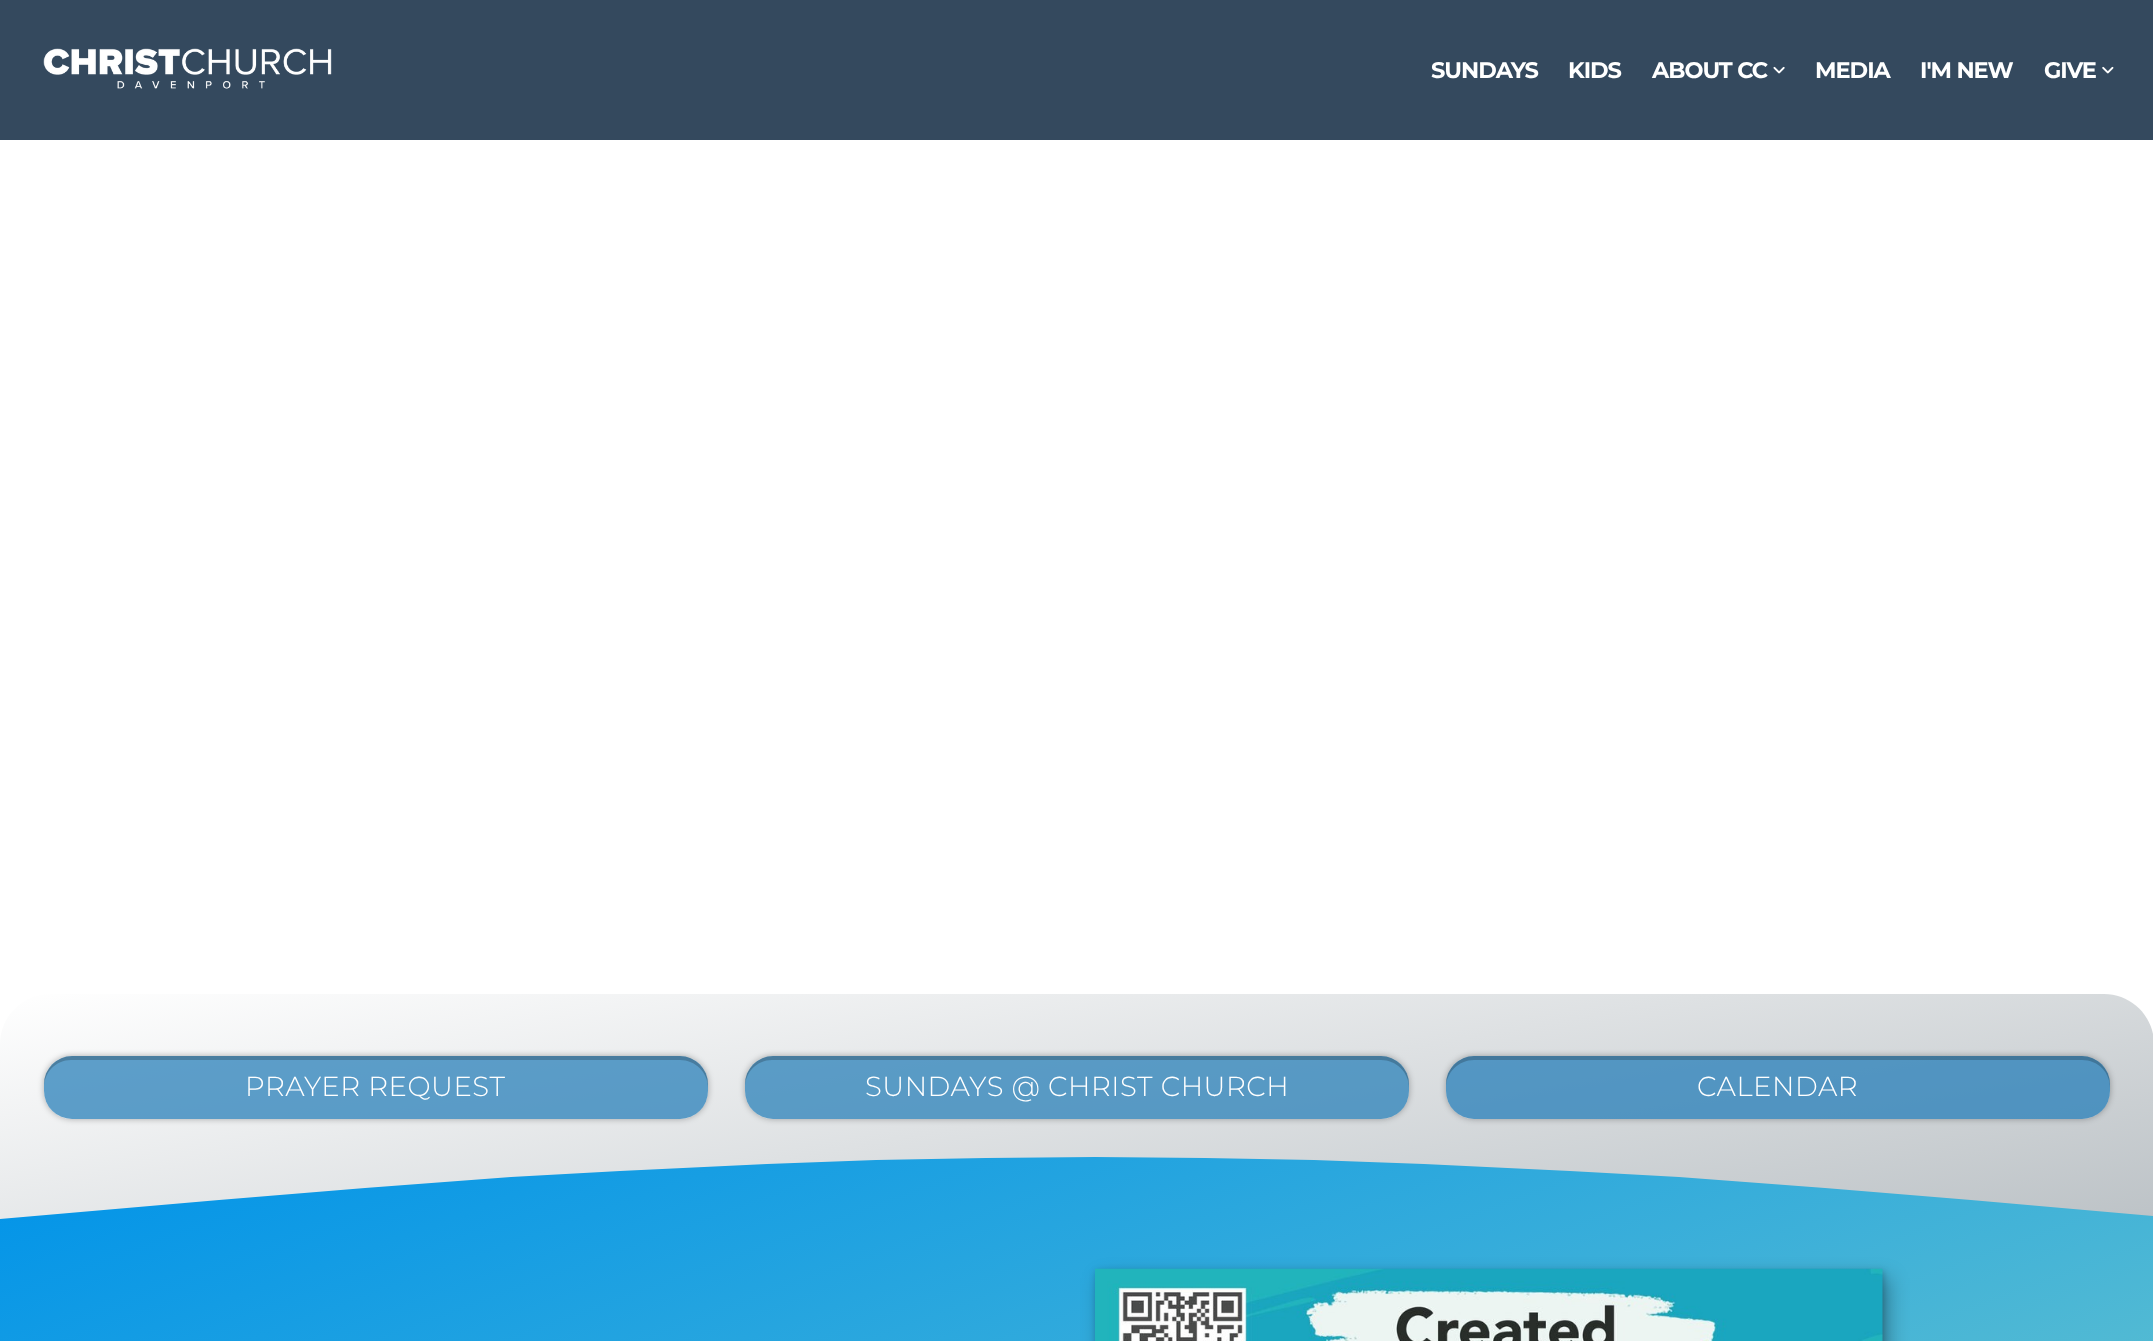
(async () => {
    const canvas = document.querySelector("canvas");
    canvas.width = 2153;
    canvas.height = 1341;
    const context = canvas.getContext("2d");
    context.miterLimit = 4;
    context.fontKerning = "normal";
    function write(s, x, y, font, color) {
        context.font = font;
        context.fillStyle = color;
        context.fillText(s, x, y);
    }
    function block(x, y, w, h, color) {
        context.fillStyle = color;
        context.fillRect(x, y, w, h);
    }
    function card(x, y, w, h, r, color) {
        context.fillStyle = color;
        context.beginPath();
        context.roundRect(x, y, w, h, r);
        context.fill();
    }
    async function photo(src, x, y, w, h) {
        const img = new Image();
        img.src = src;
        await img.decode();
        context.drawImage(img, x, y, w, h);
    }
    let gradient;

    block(0, 0, 2153, 1341, "rgb(255, 255, 255)");
    block(0, 0, 2153, 140, "rgb(52, 73, 94)");
    await photo("media/1.png", 43, 48, 289, 41);
    context.letterSpacing = "-1px";
    write("SUNDAYS", 1431, 78, "bold 22.5px Montserrat", "rgb(255, 255, 255)");
    write("KIDS", 1568, 78, "bold 22.5px Montserrat", "rgb(255, 255, 255)");
    write("ABOUT CC", 1652, 78, "bold 22.5px Montserrat", "rgb(255, 255, 255)");
    await photo("media/2.png", 1773, 66, 12, 8);
    write("MEDIA", 1815, 78, "bold 22.5px Montserrat", "rgb(255, 255, 255)");
    write("I'M NEW", 1920, 78, "bold 22.5px Montserrat", "rgb(255, 255, 255)");
    write("GIVE", 2044, 78, "bold 22.5px Montserrat", "rgb(255, 255, 255)");
    await photo("media/3.png", 2102, 66, 12, 8);
    gradient = context.createLinearGradient(1025, 813, 1129, 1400);
    gradient.addColorStop(0, "rgb(255, 255, 255)");
    gradient.addColorStop(1, "rgb(189, 195, 199)");
    context.fillStyle = gradient;
    context.beginPath();
    context.moveTo(50, 994);
    context.lineTo(2104, 994);
    context.bezierCurveTo(2131.5, 994, 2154, 1016.5, 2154, 1044);
    context.lineTo(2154, 1219);
    context.lineTo(0, 1219);
    context.lineTo(0, 1044);
    context.bezierCurveTo(0, 1016.5, 22.5, 994, 50, 994);
    context.closePath();
    context.fill();
    context.save();
    context.beginPath();
    context.moveTo(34, 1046);
    context.lineTo(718, 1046);
    context.lineTo(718, 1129);
    context.lineTo(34, 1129);
    context.closePath();
    context.moveTo(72, 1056);
    context.lineTo(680, 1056);
    context.bezierCurveTo(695.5, 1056, 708, 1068.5, 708, 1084);
    context.lineTo(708, 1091);
    context.bezierCurveTo(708, 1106.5, 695.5, 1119, 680, 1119);
    context.lineTo(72, 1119);
    context.bezierCurveTo(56.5, 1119, 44, 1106.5, 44, 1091);
    context.lineTo(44, 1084);
    context.bezierCurveTo(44, 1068.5, 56.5, 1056, 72, 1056);
    context.closePath();
    context.clip("evenodd");
    context.fillStyle = "rgba(0, 0, 0, 0.3)";
    context.filter = "blur(3px)";
    context.beginPath();
    context.roundRect(44, 1056, 664, 63, 28);
    context.fill();
    context.filter = "none";
    context.restore();
    card(44, 1056, 664, 63, 28, "rgba(41, 128, 185, 0.75)");
    context.fillStyle = "rgba(0, 0, 0, 0.2)";
    context.beginPath();
    context.moveTo(71, 1060);
    context.lineTo(680, 1060);
    context.bezierCurveTo(695, 1060, 708, 1072, 708, 1088);
    context.lineTo(708, 1084);
    context.bezierCurveTo(708, 1069, 695, 1056, 680, 1056);
    context.lineTo(72, 1056);
    context.bezierCurveTo(57, 1056, 44, 1069, 44, 1084);
    context.lineTo(44, 1088);
    context.bezierCurveTo(44, 1072, 56, 1060, 71, 1060);
    context.closePath();
    context.fill();
    context.letterSpacing = "0.55px";
    write("PRAYER REQUEST", 245, 1096, "300 27.5px Montserrat", "rgb(255, 255, 255)");
    context.save();
    context.beginPath();
    context.moveTo(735, 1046);
    context.lineTo(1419, 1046);
    context.lineTo(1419, 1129);
    context.lineTo(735, 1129);
    context.closePath();
    context.moveTo(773, 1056);
    context.lineTo(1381, 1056);
    context.bezierCurveTo(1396.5, 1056, 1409, 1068.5, 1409, 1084);
    context.lineTo(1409, 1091);
    context.bezierCurveTo(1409, 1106.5, 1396.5, 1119, 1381, 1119);
    context.lineTo(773, 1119);
    context.bezierCurveTo(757.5, 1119, 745, 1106.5, 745, 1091);
    context.lineTo(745, 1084);
    context.bezierCurveTo(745, 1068.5, 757.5, 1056, 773, 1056);
    context.closePath();
    context.clip("evenodd");
    context.fillStyle = "rgba(0, 0, 0, 0.3)";
    context.filter = "blur(3px)";
    context.beginPath();
    context.roundRect(745, 1056, 664, 63, 28);
    context.fill();
    context.filter = "none";
    context.restore();
    card(745, 1056, 664, 63, 28, "rgba(41, 128, 185, 0.74)");
    context.fillStyle = "rgba(0, 0, 0, 0.2)";
    context.beginPath();
    context.moveTo(772, 1060);
    context.lineTo(1381, 1060);
    context.bezierCurveTo(1396, 1060, 1409, 1072, 1409, 1088);
    context.lineTo(1409, 1084);
    context.bezierCurveTo(1409, 1069, 1396, 1056, 1381, 1056);
    context.lineTo(773, 1056);
    context.bezierCurveTo(758, 1056, 745, 1069, 745, 1084);
    context.lineTo(745, 1088);
    context.bezierCurveTo(745, 1072, 757, 1060, 772, 1060);
    context.closePath();
    context.fill();
    write("SUNDAYS @ CHRIST CHURCH", 865, 1096, "300 27.5px Montserrat", "rgb(255, 255, 255)");
    context.save();
    context.beginPath();
    context.moveTo(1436, 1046);
    context.lineTo(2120, 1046);
    context.lineTo(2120, 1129);
    context.lineTo(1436, 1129);
    context.closePath();
    context.moveTo(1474, 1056);
    context.lineTo(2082, 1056);
    context.bezierCurveTo(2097.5, 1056, 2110, 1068.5, 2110, 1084);
    context.lineTo(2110, 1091);
    context.bezierCurveTo(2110, 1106.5, 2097.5, 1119, 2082, 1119);
    context.lineTo(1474, 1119);
    context.bezierCurveTo(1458.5, 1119, 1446, 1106.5, 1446, 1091);
    context.lineTo(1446, 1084);
    context.bezierCurveTo(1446, 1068.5, 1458.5, 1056, 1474, 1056);
    context.closePath();
    context.clip("evenodd");
    context.fillStyle = "rgba(0, 0, 0, 0.3)";
    context.filter = "blur(3px)";
    context.beginPath();
    context.roundRect(1446, 1056, 664, 63, 28);
    context.fill();
    context.filter = "none";
    context.restore();
    card(1446, 1056, 664, 63, 28, "rgba(41, 128, 185, 0.76)");
    context.fillStyle = "rgba(0, 0, 0, 0.2)";
    context.beginPath();
    context.moveTo(1474, 1060);
    context.lineTo(2082, 1060);
    context.bezierCurveTo(2098, 1060, 2110, 1072, 2110, 1088);
    context.lineTo(2110, 1084);
    context.bezierCurveTo(2110, 1069, 2097, 1056, 2082, 1056);
    context.lineTo(1474, 1056);
    context.bezierCurveTo(1459, 1056, 1446, 1069, 1446, 1084);
    context.lineTo(1446, 1088);
    context.bezierCurveTo(1446, 1072, 1459, 1060, 1474, 1060);
    context.closePath();
    context.fill();
    write("CALENDAR", 1697, 1096, "300 27.5px Montserrat", "rgb(255, 255, 255)");
    gradient = context.createLinearGradient(831, 854, 1322, 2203);
    gradient.addColorStop(0, "rgb(0, 147, 233)");
    gradient.addColorStop(1, "rgb(128, 208, 199)");
    context.fillStyle = gradient;
    context.beginPath();
    context.moveTo(0, 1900);
    context.lineTo(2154, 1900);
    context.lineTo(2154, 1216);
    context.lineTo(1971, 1200);
    context.lineTo(1825, 1188);
    context.lineTo(1679, 1177);
    context.lineTo(1570, 1171);
    context.lineTo(1424, 1164);
    context.lineTo(1314, 1160);
    context.lineTo(1205, 1158);
    context.lineTo(1095, 1157);
    context.lineTo(986, 1158);
    context.lineTo(876, 1160);
    context.lineTo(767, 1164);
    context.lineTo(620, 1171);
    context.lineTo(511, 1177);
    context.lineTo(365, 1188);
    context.lineTo(219, 1200);
    context.lineTo(0, 1219);
    context.closePath();
    context.fill();
    context.fillStyle = "rgba(0, 0, 0, 0.3)";
    context.filter = "blur(9.5px)";
    context.beginPath();
    context.rect(1101, 1278, 788, 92);
    context.fill();
    context.filter = "none";
    context.fillStyle = "rgba(0, 0, 0, 0.2)";
    context.filter = "blur(3px)";
    context.beginPath();
    context.rect(1096, 1271, 788, 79);
    context.fill();
    context.filter = "none";
    await photo("media/4.png", 1095, 1268, 788, 73);
})();
